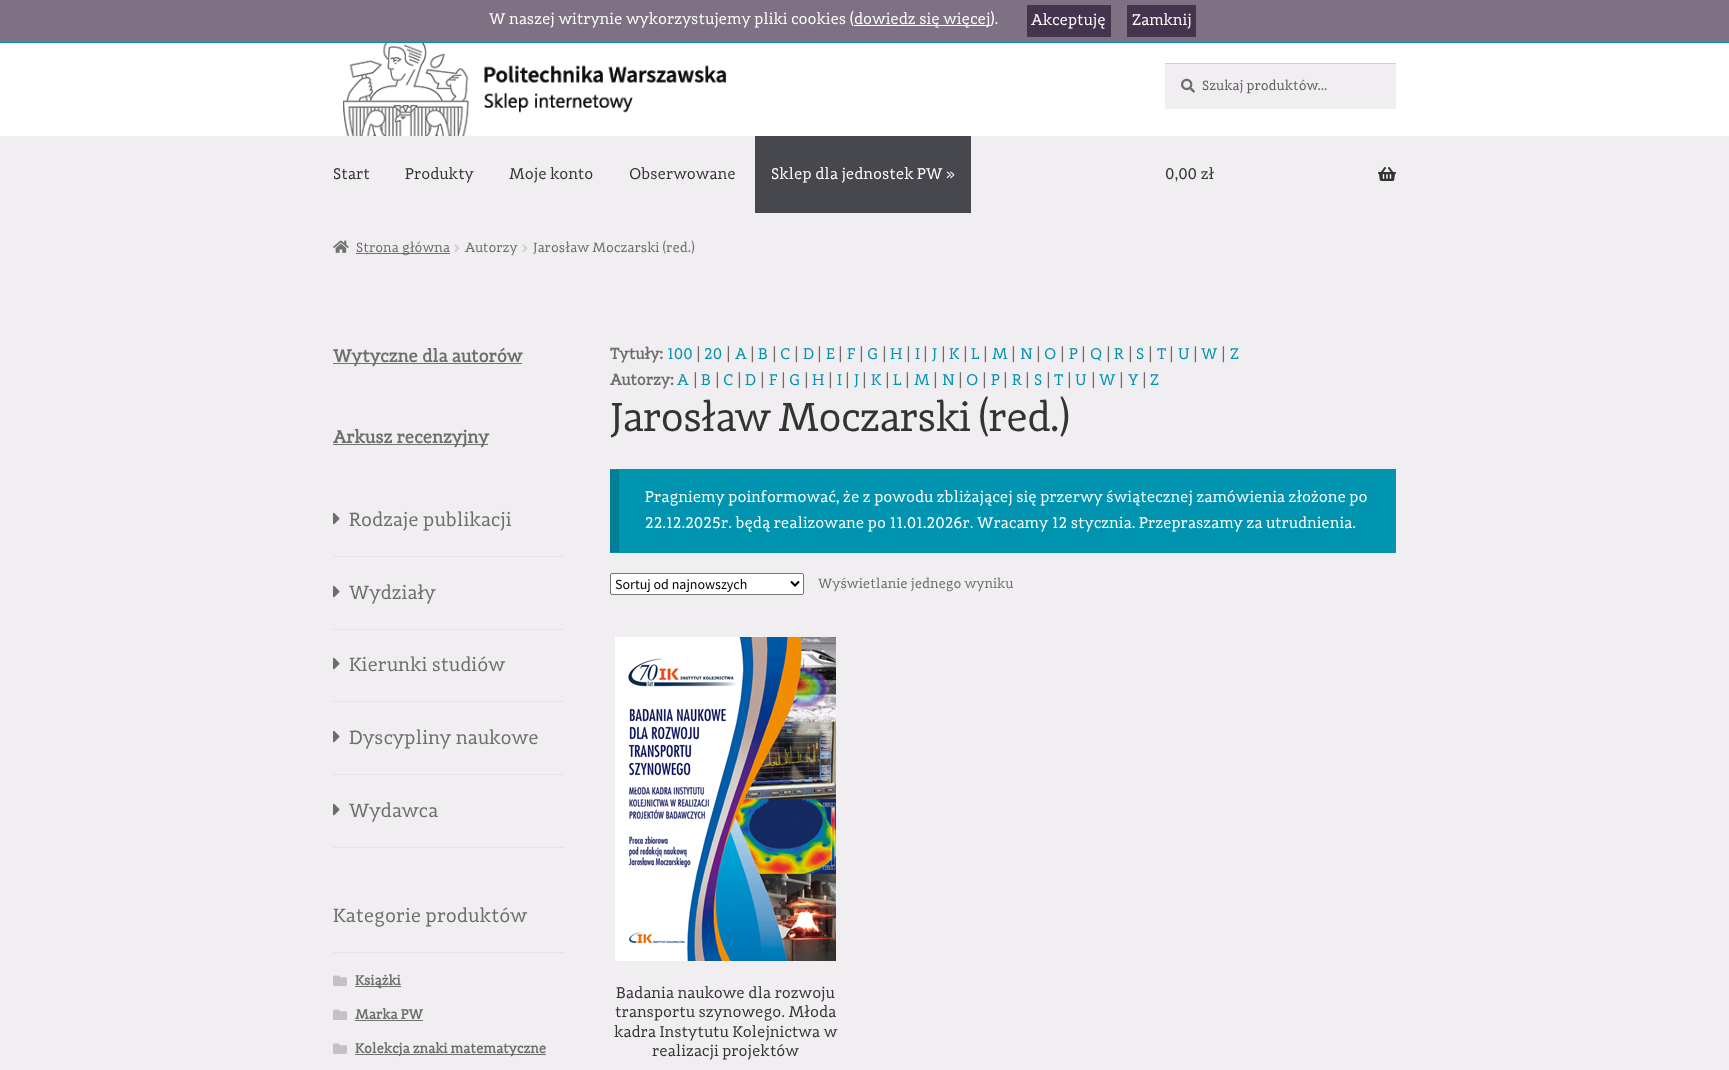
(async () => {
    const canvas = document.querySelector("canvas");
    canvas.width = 1729;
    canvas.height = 1070;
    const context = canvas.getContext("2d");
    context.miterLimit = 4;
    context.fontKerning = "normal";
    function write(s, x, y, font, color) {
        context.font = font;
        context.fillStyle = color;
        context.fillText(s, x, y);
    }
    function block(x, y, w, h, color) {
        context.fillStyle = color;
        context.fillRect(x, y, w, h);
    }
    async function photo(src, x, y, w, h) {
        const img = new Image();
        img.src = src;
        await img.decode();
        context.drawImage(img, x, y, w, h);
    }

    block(0, 0, 1729, 1070, "rgb(241, 238, 241)");
    block(0, 0, 1729, 42, "rgb(126, 113, 131)");
    write("W naszej witrynie wykorzystujemy pliki cookies (", 489, 24, "16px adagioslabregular", "rgb(255, 255, 255)");
    block(854, 25, 137, 1, "rgb(255, 255, 255)");
    write("dowiedz się więcej).", 854, 24, "16px adagioslabregular", "rgb(255, 255, 255)");
    block(1027, 5, 84, 32, "rgb(69, 52, 77)");
    write("Akceptuję", 1031, 25, "16px adagioslabregular", "rgb(255, 255, 255)");
    block(1127, 5, 69, 32, "rgb(69, 52, 77)");
    write("Zamknij", 1132, 25, "16px adagioslabregular", "rgb(255, 255, 255)");
    block(0, 42, 1729, 1, "rgb(0, 148, 176)");
    block(0, 43, 1729, 93, "rgb(255, 255, 255)");
    await photo("media/1.png", 343, 43, 384, 93);
    block(1165, 64, 231, 45, "rgb(241, 238, 241)");
    await photo("media/2.png", 1181, 78, 14, 15);
    block(1165, 63, 231, 1, "rgb(211, 208, 211)");
    write("Szukaj produktów…", 1202, 90, "14px adagioslabregular", "rgb(97, 97, 97)");
    write("Start", 333, 179, "16px adagioslabregular", "rgb(51, 51, 51)");
    write("Produkty", 405, 179, "16px adagioslabregular", "rgb(51, 51, 51)");
    write("Moje konto", 509, 179, "16px adagioslabregular", "rgb(51, 51, 51)");
    write("Obserwowane", 629, 179, "16px adagioslabregular", "rgb(51, 51, 51)");
    block(755, 136, 216, 77, "rgb(71, 71, 78)");
    write("Sklep dla jednostek PW »", 771, 179, "16px adagioslabregular", "rgb(255, 255, 255)");
    write("0,00 zł", 1165, 179, "16px adagioslabregular", "rgb(51, 51, 51)");
    await photo("media/3.png", 1378, 167, 18, 14);
    await photo("media/4.png", 333, 240, 16, 13);
    block(356, 253, 94, 1, "rgb(114, 114, 114)");
    write("Strona główna", 356, 252, "14px adagioslabregular", "rgb(109, 109, 109)");
    await photo("media/5.png", 454, 244, 6, 8);
    write("Autorzy", 465, 252, "14px adagioslabregular", "rgb(109, 109, 109)");
    await photo("media/5.png", 522, 244, 6, 8);
    write("Jarosław Moczarski (red.)", 533, 252, "14px adagioslabregular", "rgb(109, 109, 109)");
    block(333, 363, 189, 1, "rgb(114, 114, 114)");
    write("Wytyczne dla autorów", 333, 362, "bold 18.1px adagioslabregular", "rgb(109, 109, 109)");
    block(333, 444, 155, 1, "rgb(114, 114, 114)");
    write("Arkusz recenzyjny", 333, 443, "bold 18.1px adagioslabregular", "rgb(109, 109, 109)");
    block(333, 556, 231, 1, "rgb(229, 226, 229)");
    await photo("media/6.png", 333, 512, 7, 13);
    write("Rodzaje publikacji", 349, 526, "19.75px adagioslabregular", "rgb(109, 109, 109)");
    block(333, 629, 231, 1, "rgb(229, 226, 229)");
    await photo("media/6.png", 333, 585, 7, 13);
    write("Wydziały", 349, 599, "19.75px adagioslabregular", "rgb(109, 109, 109)");
    block(333, 701, 231, 1, "rgb(229, 226, 229)");
    await photo("media/6.png", 333, 657, 7, 13);
    write("Kierunki studiów", 349, 671, "19.75px adagioslabregular", "rgb(109, 109, 109)");
    block(333, 774, 231, 1, "rgb(229, 226, 229)");
    await photo("media/6.png", 333, 730, 7, 13);
    write("Dyscypliny naukowe", 349, 744, "19.75px adagioslabregular", "rgb(109, 109, 109)");
    block(333, 847, 231, 1, "rgb(229, 226, 229)");
    await photo("media/6.png", 333, 803, 7, 13);
    write("Wydawca", 349, 817, "19.75px adagioslabregular", "rgb(109, 109, 109)");
    block(333, 952, 231, 1, "rgb(229, 226, 229)");
    write("Kategorie produktów", 333, 922, "19.75px adagioslabregular", "rgb(109, 109, 109)");
    await photo("media/7.png", 333, 975, 14, 11);
    block(355, 986, 46, 1, "rgb(114, 114, 114)");
    write("Książki", 355, 985, "bold 14px adagioslabregular", "rgb(109, 109, 109)");
    await photo("media/7.png", 333, 1009, 14, 11);
    write("Marka PW", 355, 1019, "bold 14px adagioslabregular", "rgb(109, 109, 109)");
    block(355, 1020, 68, 1, "rgb(114, 114, 114)");
    await photo("media/7.png", 333, 1043, 14, 11);
    block(355, 1054, 191, 1, "rgb(114, 114, 114)");
    write("Kolekcja znaki matematyczne", 355, 1053, "bold 14px adagioslabregular", "rgb(109, 109, 109)");
    write("Tytuły:", 610, 359, "bold 16px adagioslabregular", "rgb(109, 109, 109)");
    write("100", 667, 359, "16px adagioslabregular", "rgb(0, 148, 176)");
    write("|", 696, 359, "16px adagioslabregular", "rgb(109, 109, 109)");
    write("20", 704, 359, "16px adagioslabregular", "rgb(0, 148, 176)");
    write("|", 726, 359, "16px adagioslabregular", "rgb(109, 109, 109)");
    write("A", 735, 359, "16px adagioslabregular", "rgb(0, 148, 176)");
    write("|", 750, 359, "16px adagioslabregular", "rgb(109, 109, 109)");
    write("B", 758, 359, "16px adagioslabregular", "rgb(0, 148, 176)");
    write("|", 772, 359, "16px adagioslabregular", "rgb(109, 109, 109)");
    write("C", 780, 359, "16px adagioslabregular", "rgb(0, 148, 176)");
    write("|", 794, 359, "16px adagioslabregular", "rgb(109, 109, 109)");
    write("D", 803, 359, "16px adagioslabregular", "rgb(0, 148, 176)");
    write("|", 817, 359, "16px adagioslabregular", "rgb(109, 109, 109)");
    write("E", 826, 359, "16px adagioslabregular", "rgb(0, 148, 176)");
    write("|", 838, 359, "16px adagioslabregular", "rgb(109, 109, 109)");
    write("F", 847, 359, "16px adagioslabregular", "rgb(0, 148, 176)");
    write("|", 859, 359, "16px adagioslabregular", "rgb(109, 109, 109)");
    write("G", 867, 359, "16px adagioslabregular", "rgb(0, 148, 176)");
    write("|", 882, 359, "16px adagioslabregular", "rgb(109, 109, 109)");
    write("H", 890, 359, "16px adagioslabregular", "rgb(0, 148, 176)");
    write("|", 906, 359, "16px adagioslabregular", "rgb(109, 109, 109)");
    write("I", 915, 359, "16px adagioslabregular", "rgb(0, 148, 176)");
    write("|", 923, 359, "16px adagioslabregular", "rgb(109, 109, 109)");
    write("J", 932, 359, "16px adagioslabregular", "rgb(0, 148, 176)");
    write("|", 941, 359, "16px adagioslabregular", "rgb(109, 109, 109)");
    write("K", 949, 359, "16px adagioslabregular", "rgb(0, 148, 176)");
    write("|", 963, 359, "16px adagioslabregular", "rgb(109, 109, 109)");
    write("L", 971, 359, "16px adagioslabregular", "rgb(0, 148, 176)");
    write("|", 983, 359, "16px adagioslabregular", "rgb(109, 109, 109)");
    write("M", 992, 359, "16px adagioslabregular", "rgb(0, 148, 176)");
    write("|", 1011, 359, "16px adagioslabregular", "rgb(109, 109, 109)");
    write("N", 1020, 359, "16px adagioslabregular", "rgb(0, 148, 176)");
    write("|", 1036, 359, "16px adagioslabregular", "rgb(109, 109, 109)");
    write("O", 1044, 359, "16px adagioslabregular", "rgb(0, 148, 176)");
    write("|", 1060, 359, "16px adagioslabregular", "rgb(109, 109, 109)");
    write("P", 1069, 359, "16px adagioslabregular", "rgb(0, 148, 176)");
    write("|", 1081, 359, "16px adagioslabregular", "rgb(109, 109, 109)");
    write("Q", 1090, 359, "16px adagioslabregular", "rgb(0, 148, 176)");
    write("|", 1106, 359, "16px adagioslabregular", "rgb(109, 109, 109)");
    write("R", 1114, 359, "16px adagioslabregular", "rgb(0, 148, 176)");
    write("|", 1128, 359, "16px adagioslabregular", "rgb(109, 109, 109)");
    write("S", 1136, 359, "16px adagioslabregular", "rgb(0, 148, 176)");
    write("|", 1148, 359, "16px adagioslabregular", "rgb(109, 109, 109)");
    write("T", 1157, 359, "16px adagioslabregular", "rgb(0, 148, 176)");
    write("|", 1169, 359, "16px adagioslabregular", "rgb(109, 109, 109)");
    write("U", 1178, 359, "16px adagioslabregular", "rgb(0, 148, 176)");
    write("|", 1193, 359, "16px adagioslabregular", "rgb(109, 109, 109)");
    write("W", 1201, 359, "16px adagioslabregular", "rgb(0, 148, 176)");
    write("|", 1221, 359, "16px adagioslabregular", "rgb(109, 109, 109)");
    write("Z", 1230, 359, "16px adagioslabregular", "rgb(0, 148, 176)");
    write("Autorzy:", 610, 385, "bold 16px adagioslabregular", "rgb(109, 109, 109)");
    write("A", 677, 385, "16px adagioslabregular", "rgb(0, 148, 176)");
    write("|", 693, 385, "16px adagioslabregular", "rgb(109, 109, 109)");
    write("B", 701, 385, "16px adagioslabregular", "rgb(0, 148, 176)");
    write("|", 715, 385, "16px adagioslabregular", "rgb(109, 109, 109)");
    write("C", 723, 385, "16px adagioslabregular", "rgb(0, 148, 176)");
    write("|", 737, 385, "16px adagioslabregular", "rgb(109, 109, 109)");
    write("D", 745, 385, "16px adagioslabregular", "rgb(0, 148, 176)");
    write("|", 760, 385, "16px adagioslabregular", "rgb(109, 109, 109)");
    write("F", 769, 385, "16px adagioslabregular", "rgb(0, 148, 176)");
    write("|", 781, 385, "16px adagioslabregular", "rgb(109, 109, 109)");
    write("G", 789, 385, "16px adagioslabregular", "rgb(0, 148, 176)");
    write("|", 804, 385, "16px adagioslabregular", "rgb(109, 109, 109)");
    write("H", 812, 385, "16px adagioslabregular", "rgb(0, 148, 176)");
    write("|", 828, 385, "16px adagioslabregular", "rgb(109, 109, 109)");
    write("I", 837, 385, "16px adagioslabregular", "rgb(0, 148, 176)");
    write("|", 845, 385, "16px adagioslabregular", "rgb(109, 109, 109)");
    write("J", 854, 385, "16px adagioslabregular", "rgb(0, 148, 176)");
    write("|", 862, 385, "16px adagioslabregular", "rgb(109, 109, 109)");
    write("K", 871, 385, "16px adagioslabregular", "rgb(0, 148, 176)");
    write("|", 885, 385, "16px adagioslabregular", "rgb(109, 109, 109)");
    write("L", 893, 385, "16px adagioslabregular", "rgb(0, 148, 176)");
    write("|", 905, 385, "16px adagioslabregular", "rgb(109, 109, 109)");
    write("M", 914, 385, "16px adagioslabregular", "rgb(0, 148, 176)");
    write("|", 933, 385, "16px adagioslabregular", "rgb(109, 109, 109)");
    write("N", 942, 385, "16px adagioslabregular", "rgb(0, 148, 176)");
    write("|", 958, 385, "16px adagioslabregular", "rgb(109, 109, 109)");
    write("O", 966, 385, "16px adagioslabregular", "rgb(0, 148, 176)");
    write("|", 982, 385, "16px adagioslabregular", "rgb(109, 109, 109)");
    write("P", 991, 385, "16px adagioslabregular", "rgb(0, 148, 176)");
    write("|", 1003, 385, "16px adagioslabregular", "rgb(109, 109, 109)");
    write("R", 1012, 385, "16px adagioslabregular", "rgb(0, 148, 176)");
    write("|", 1025, 385, "16px adagioslabregular", "rgb(109, 109, 109)");
    write("S", 1034, 385, "16px adagioslabregular", "rgb(0, 148, 176)");
    write("|", 1046, 385, "16px adagioslabregular", "rgb(109, 109, 109)");
    write("T", 1054, 385, "16px adagioslabregular", "rgb(0, 148, 176)");
    write("|", 1067, 385, "16px adagioslabregular", "rgb(109, 109, 109)");
    write("U", 1075, 385, "16px adagioslabregular", "rgb(0, 148, 176)");
    write("|", 1091, 385, "16px adagioslabregular", "rgb(109, 109, 109)");
    write("W", 1099, 385, "16px adagioslabregular", "rgb(0, 148, 176)");
    write("|", 1119, 385, "16px adagioslabregular", "rgb(109, 109, 109)");
    write("Y", 1128, 385, "16px adagioslabregular", "rgb(0, 148, 176)");
    write("|", 1142, 385, "16px adagioslabregular", "rgb(109, 109, 109)");
    write("Z", 1150, 385, "16px adagioslabregular", "rgb(0, 148, 176)");
    context.letterSpacing = "-1px";
    write("Jarosław Moczarski (red.)", 610, 431, "41.9px adagioslabregular", "rgb(51, 51, 51)");
    block(610, 469, 786, 84, "rgb(0, 148, 176)");
    block(610, 470, 9, 82, "rgb(0, 126, 150)");
    context.letterSpacing = "0px";
    write("Pragniemy poinformować, że z powodu zbliżającej się przerwy świątecznej zamówienia złożone po", 645, 502, "16px adagioslabregular", "rgb(255, 255, 255)");
    write("22.12.2025r. będą realizowane po 11.01.2026r. Wracamy 12 stycznia. Przepraszamy za utrudnienia.", 645, 528, "16px adagioslabregular", "rgb(255, 255, 255)");
    context.beginPath();
    context.roundRect(610.5, 573.5, 193, 21, 1.5);
    context.fill();
    context.strokeStyle = "rgb(118, 118, 118)";
    context.stroke();
    context.beginPath();
    context.moveTo(791, 581.5);
    context.lineTo(795, 585.5);
    context.lineTo(799, 581.5);
    context.strokeStyle = "rgb(0, 0, 0)";
    context.lineWidth = 2;
    context.stroke();
    write("Sortuj od najnowszych", 615, 589, "14px Source Sans Pro", "rgb(0, 0, 0)");
    write("Wyświetlanie jednego wyniku", 818, 588, "14px adagioslabregular", "rgb(109, 109, 109)");
    await photo("media/8.png", 615, 637, 221, 324);
    write("Badania naukowe dla rozwoju", 616, 998, "16px adagioslabregular", "rgb(51, 51, 51)");
    write("transportu szynowego. Młoda", 615, 1017, "16px adagioslabregular", "rgb(51, 51, 51)");
    write("kadra Instytutu Kolejnictwa w", 614, 1037, "16px adagioslabregular", "rgb(51, 51, 51)");
    write("realizacji projektów", 652, 1056, "16px adagioslabregular", "rgb(51, 51, 51)");
})();
